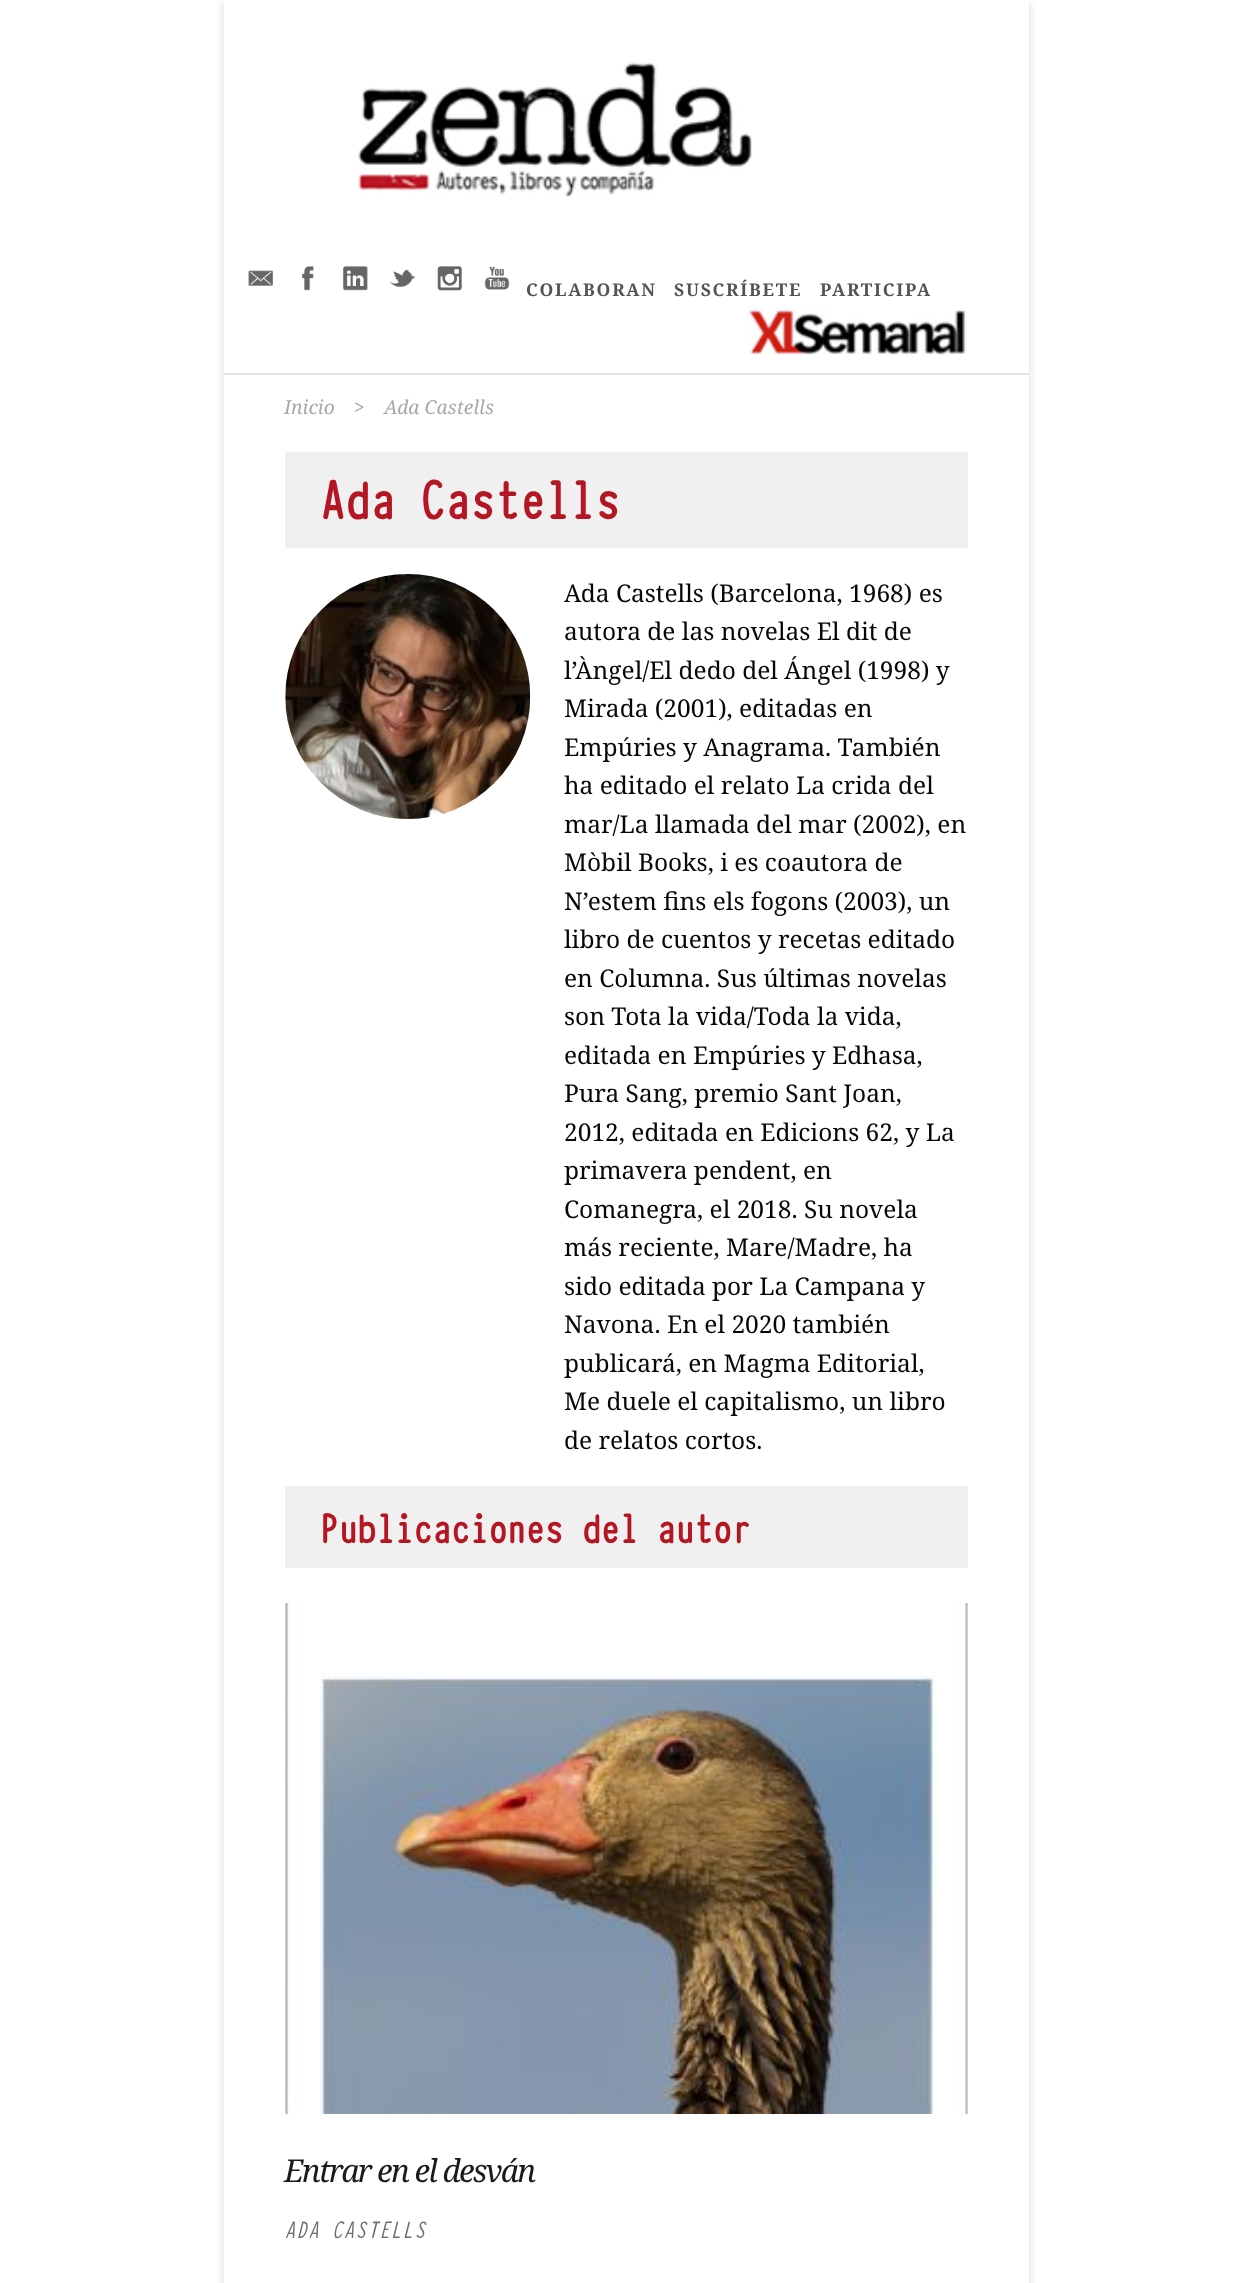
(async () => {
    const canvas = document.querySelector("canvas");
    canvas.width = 1251;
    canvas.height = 2283;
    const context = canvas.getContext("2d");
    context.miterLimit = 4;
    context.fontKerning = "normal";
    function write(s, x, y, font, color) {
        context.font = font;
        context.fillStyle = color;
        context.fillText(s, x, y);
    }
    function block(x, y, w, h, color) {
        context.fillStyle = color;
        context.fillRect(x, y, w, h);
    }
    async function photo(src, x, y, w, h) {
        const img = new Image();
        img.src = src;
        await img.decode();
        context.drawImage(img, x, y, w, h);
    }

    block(0, 0, 1251, 2283, "rgb(255, 255, 255)");
    context.save();
    context.beginPath();
    context.moveTo(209, 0);
    context.lineTo(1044, 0);
    context.lineTo(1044, 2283);
    context.lineTo(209, 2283);
    context.closePath();
    context.moveTo(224, 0);
    context.lineTo(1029, 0);
    context.lineTo(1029, 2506);
    context.lineTo(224, 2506);
    context.closePath();
    context.clip("evenodd");
    context.fillStyle = "rgba(0, 0, 0, 0.15)";
    context.filter = "blur(4.5px)";
    context.beginPath();
    context.rect(224, 2, 805, 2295);
    context.fill();
    context.filter = "none";
    context.restore();
    block(224, 373, 805, 2, "rgb(228, 228, 228)");
    await photo("media/1.png", 358, 62, 394, 135);
    await photo("media/2.png", 248, 270, 25, 16);
    await photo("media/3.png", 302, 266, 12, 25);
    await photo("media/4.png", 343, 266, 25, 25);
    await photo("media/5.png", 390, 269, 25, 19);
    await photo("media/6.png", 437, 266, 25, 25);
    await photo("media/7.png", 484, 266, 26, 24);
    context.letterSpacing = "1.75px";
    write("COLABORAN", 526, 296, "bold 17.5px Noto Serif", "rgb(84, 84, 84)");
    write("SUSCRÍBETE", 674, 296, "bold 17.5px Noto Serif", "rgb(84, 84, 84)");
    write("PARTICIPA", 820, 296, "bold 17.5px Noto Serif", "rgb(84, 84, 84)");
    await photo("media/8.png", 749, 308, 218, 48);
    context.letterSpacing = "0px";
    write("Inicio", 284, 414, "italic 19.25px Noto Serif", "rgb(168, 168, 168)");
    write(">", 354, 414, "italic 19.25px Noto Serif", "rgb(168, 168, 168)");
    write("Ada Castells", 384, 414, "italic 19.25px Noto Serif", "rgb(168, 168, 168)");
    block(285, 452, 683, 96, "rgb(240, 240, 240)");
    context.letterSpacing = "-1.75px";
    write("Ada Castells", 319, 519, "bold 59.5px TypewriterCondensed", "rgb(181, 22, 35)");
    await photo("media/9.png", 285, 574, 246, 245);
    context.letterSpacing = "0px";
    write("Ada Castells (Barcelona, 1968) es", 564, 602, "24.5px Noto Serif", "rgb(7, 7, 7)");
    write("autora de las novelas El dit de", 564, 640, "24.5px Noto Serif", "rgb(7, 7, 7)");
    write("l’Àngel/El dedo del Ángel (1998) y", 564, 679, "24.5px Noto Serif", "rgb(7, 7, 7)");
    write("Mirada (2001), editadas en", 564, 717, "24.5px Noto Serif", "rgb(7, 7, 7)");
    write("Empúries y Anagrama. También", 564, 756, "24.5px Noto Serif", "rgb(7, 7, 7)");
    write("ha editado el relato La crida del", 564, 794, "24.5px Noto Serif", "rgb(7, 7, 7)");
    write("mar/La llamada del mar (2002), en", 564, 833, "24.5px Noto Serif", "rgb(7, 7, 7)");
    write("Mòbil Books, i es coautora de", 564, 871, "24.5px Noto Serif", "rgb(7, 7, 7)");
    write("N’estem fins els fogons (2003), un", 564, 910, "24.5px Noto Serif", "rgb(7, 7, 7)");
    write("libro de cuentos y recetas editado", 564, 948, "24.5px Noto Serif", "rgb(7, 7, 7)");
    write("en Columna. Sus últimas novelas", 564, 987, "24.5px Noto Serif", "rgb(7, 7, 7)");
    write("son Tota la vida/Toda la vida,", 564, 1025, "24.5px Noto Serif", "rgb(7, 7, 7)");
    write("editada en Empúries y Edhasa,", 564, 1064, "24.5px Noto Serif", "rgb(7, 7, 7)");
    write("Pura Sang, premio Sant Joan,", 564, 1102, "24.5px Noto Serif", "rgb(7, 7, 7)");
    write("2012, editada en Edicions 62, y La", 564, 1141, "24.5px Noto Serif", "rgb(7, 7, 7)");
    write("primavera pendent, en", 564, 1179, "24.5px Noto Serif", "rgb(7, 7, 7)");
    write("Comanegra, el 2018. Su novela", 564, 1218, "24.5px Noto Serif", "rgb(7, 7, 7)");
    write("más reciente, Mare/Madre, ha", 564, 1256, "24.5px Noto Serif", "rgb(7, 7, 7)");
    write("sido editada por La Campana y", 564, 1295, "24.5px Noto Serif", "rgb(7, 7, 7)");
    write("Navona. En el 2020 también", 564, 1333, "24.5px Noto Serif", "rgb(7, 7, 7)");
    write("publicará, en Magma Editorial,", 564, 1372, "24.5px Noto Serif", "rgb(7, 7, 7)");
    write("Me duele el capitalismo, un libro", 564, 1410, "24.5px Noto Serif", "rgb(7, 7, 7)");
    write("de relatos cortos.", 564, 1449, "24.5px Noto Serif", "rgb(7, 7, 7)");
    block(285, 1486, 683, 82, "rgb(240, 240, 240)");
    context.letterSpacing = "-1.75px";
    write("Publicaciones del autor", 319, 1543, "bold 45.5px TypewriterCondensed", "rgb(181, 22, 35)");
    await photo("media/10.png", 285, 1603, 683, 511);
    write("Entrar en el desván", 284, 2182, "italic 31.5px Noto Serif", "rgb(26, 26, 26)");
    context.letterSpacing = "0px";
    write("ADA CASTELLS", 284, 2238, "italic 26.25px TypewriterCondensed", "rgb(109, 109, 109)");
})();
